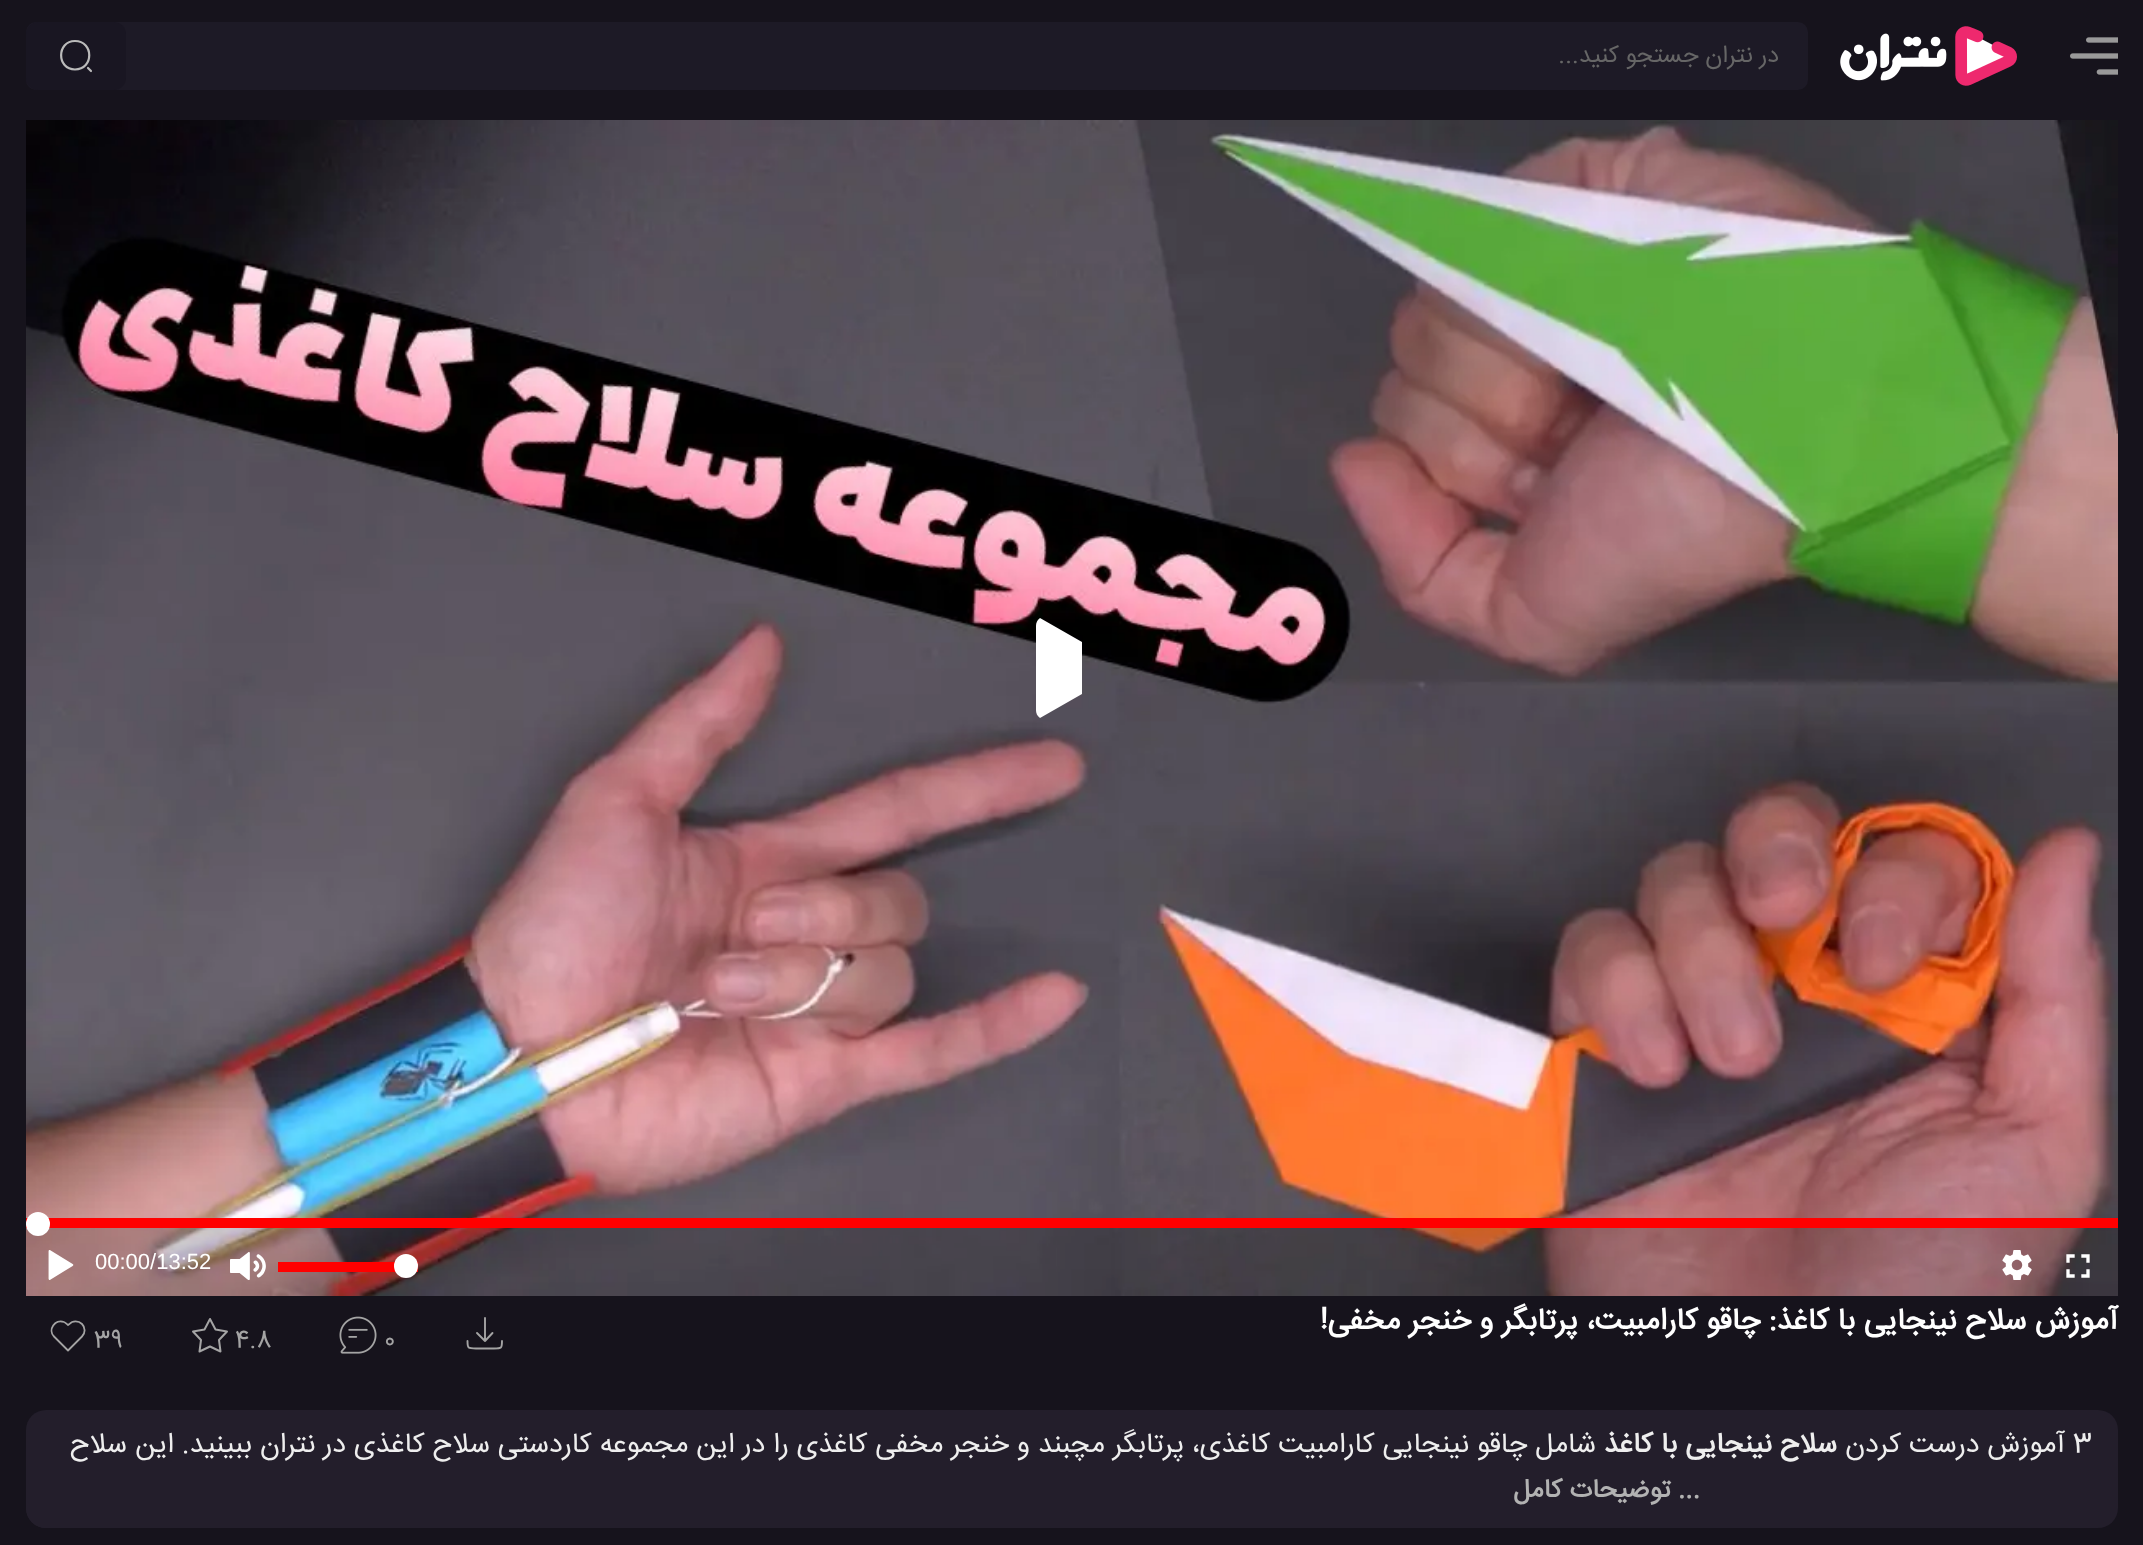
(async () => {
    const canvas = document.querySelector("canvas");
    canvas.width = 2143;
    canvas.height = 1545;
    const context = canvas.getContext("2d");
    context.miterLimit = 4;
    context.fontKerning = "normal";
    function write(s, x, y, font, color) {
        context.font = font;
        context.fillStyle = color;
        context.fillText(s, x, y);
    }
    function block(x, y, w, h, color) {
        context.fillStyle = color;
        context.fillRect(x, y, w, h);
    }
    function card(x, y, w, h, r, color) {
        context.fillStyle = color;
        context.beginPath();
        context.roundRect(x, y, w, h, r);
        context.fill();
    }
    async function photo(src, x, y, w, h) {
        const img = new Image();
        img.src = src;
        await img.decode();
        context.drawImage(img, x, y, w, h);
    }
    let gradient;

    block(0, 0, 2143, 1545, "rgb(22, 19, 28)");
    await photo("media/1.png", 2070, 37, 48, 38);
    await photo("media/2.png", 1840, 26, 177, 60);
    card(26, 22, 1782, 68, 10, "rgb(29, 26, 38)");
    context.direction = "rtl";
    write("در نتران جستجو کنید...", 1779, 62, "24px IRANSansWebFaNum", "rgb(102, 102, 102)");
    card(26, 22, 100, 68, 12, "rgb(25, 22, 34)");
    context.beginPath();
    context.moveTo(75, 69.5);
    context.bezierCurveTo(94, 69.5, 94, 41, 75, 41);
    context.bezierCurveTo(56.5, 41, 56.5, 69.5, 75, 69.5);
    context.closePath();
    context.moveTo(91, 71);
    context.lineTo(88, 68);
    context.strokeStyle = "rgb(187, 187, 187)";
    context.lineWidth = 2.2;
    context.lineCap = "round";
    context.lineJoin = "round";
    context.stroke();
    await photo("media/3.png", 26, 120, 2092, 1176);
    context.fillStyle = "rgb(255, 255, 255)";
    context.beginPath();
    context.moveTo(1036, 626);
    context.lineTo(1036, 710);
    context.bezierCurveTo(1036, 713, 1037, 716, 1040, 718);
    context.lineTo(1082, 694);
    context.lineTo(1082, 642);
    context.lineTo(1040, 618);
    context.bezierCurveTo(1037, 620, 1036, 623, 1036, 626);
    context.closePath();
    context.fill();
    block(26, 1228, 2092, 68, "rgba(0, 0, 0, 0.2)");
    block(26, 1218, 2092, 10, "rgb(255, 0, 0)");
    context.fillStyle = "rgb(255, 255, 255)";
    context.beginPath();
    context.arc(38, 1224, 12, 0, Math.PI * 2);
    context.fill();
    await photo("media/4.png", 2066, 1254, 24, 24);
    await photo("media/5.png", 2002, 1250, 30, 30);
    block(278, 1262, 140, 10, "rgb(255, 0, 0)");
    context.fillStyle = "rgb(255, 255, 255)";
    context.beginPath();
    context.arc(406, 1266, 12, 0, Math.PI * 2);
    context.fill();
    await photo("media/6.png", 230, 1252, 36, 28);
    context.direction = "ltr";
    write("00:00/13:52", 95, 1269, "22px Liberation Sans", "rgb(255, 255, 255)");
    await photo("media/7.png", 48, 1250, 26, 30);
    context.direction = "rtl";
    write("آموزش سلاح نینجایی با کاغذ: چاقو کارامبیت، پرتابگر و خنجر مخفی!", 2118, 1329, "bold 30px IRANSansWebFaNum", "rgb(255, 255, 255)");
    context.beginPath();
    context.moveTo(492.5, 1333);
    context.lineTo(485, 1341);
    context.moveTo(485, 1341);
    context.lineTo(477, 1333);
    context.moveTo(485, 1341);
    context.lineTo(485, 1318);
    context.moveTo(502, 1341);
    context.bezierCurveTo(502, 1348.5, 501.5, 1348.5, 494, 1348.5);
    context.lineTo(476, 1348.5);
    context.bezierCurveTo(468, 1348.5, 467.5, 1348.5, 467.5, 1341);
    context.strokeStyle = "rgb(164, 164, 164)";
    context.lineWidth = 1.9;
    context.stroke();
    context.direction = "ltr";
    write("0", 384, 1347, "24px IRANSansWebFaNum", "rgb(164, 164, 164)");
    await photo("media/8.png", 339, 1316, 38, 38);
    write("4.8", 235, 1347, "24px IRANSansWebFaNum", "rgb(164, 164, 164)");
    context.beginPath();
    context.moveTo(210, 1319);
    context.lineTo(215.5, 1329.5);
    context.lineTo(227, 1331.5);
    context.lineTo(219, 1340);
    context.lineTo(220.5, 1351.5);
    context.lineTo(210, 1346.5);
    context.lineTo(199.5, 1351.5);
    context.lineTo(201, 1340);
    context.lineTo(193, 1331.5);
    context.lineTo(204.5, 1329.5);
    context.closePath();
    context.lineWidth = 2;
    context.stroke();
    write("39", 94, 1347, "24px IRANSansWebFaNum", "rgb(164, 164, 164)");
    context.beginPath();
    context.moveTo(54, 1336.5);
    context.lineTo(68, 1350.5);
    context.lineTo(82, 1336.5);
    context.bezierCurveTo(85.5, 1333, 85.5, 1327.5, 82, 1324);
    context.bezierCurveTo(78.5, 1320.5, 72.5, 1320.5, 69.5, 1324);
    context.lineTo(68, 1325);
    context.bezierCurveTo(66.5, 1324, 65.5, 1322.5, 64, 1322);
    context.bezierCurveTo(55, 1318.5, 47.5, 1330, 54, 1336.5);
    context.closePath();
    context.lineWidth = 1.8;
    context.lineCap = "butt";
    context.stroke();
    card(26, 1410, 2092, 118, 20, "rgb(35, 30, 43)");
    write("3", 2073, 1452, "28px IRANSansWebFaNum", "rgb(238, 238, 238)");
    context.direction = "rtl";
    write("آموزش درست کردن", 2065, 1452, "28px IRANSansWebFaNum", "rgb(238, 238, 238)");
    write("سلاح نینجایی با کاغذ", 1837, 1452, "bold 28px IRANSansWebFaNum", "rgb(238, 238, 238)");
    write("شامل چاقو نینجایی کارامبیت کاغذی، پرتابگر مچبند و خنجر مخفی کاغذی را در این مجموعه کاردستی سلاح کاغذی در نتران ببینید. این", 1596, 1452, "28px IRANSansWebFaNum", "rgb(238, 238, 238)");
    write("سلاح", 127, 1452, "28px IRANSansWebFaNum", "rgb(238, 238, 238)");
    gradient = context.createLinearGradient(26, 1495, 2118, 1495);
    gradient.addColorStop(0, "rgb(35, 30, 43)");
    gradient.addColorStop(0.78, "rgb(35, 30, 43)");
    gradient.addColorStop(0.9, "rgba(35, 30, 43, 0)");
    gradient.addColorStop(1, "rgba(0, 0, 0, 0)");
    context.fillStyle = gradient;
    context.beginPath();
    context.roundRect(26, 1462, 2092, 66, [0, 0, 20, 20]);
    context.fill();
    write("... توضیحات کامل", 1700, 1497, "bold 26px IRANSansWebFaNum", "rgb(178, 178, 178)");
})();
